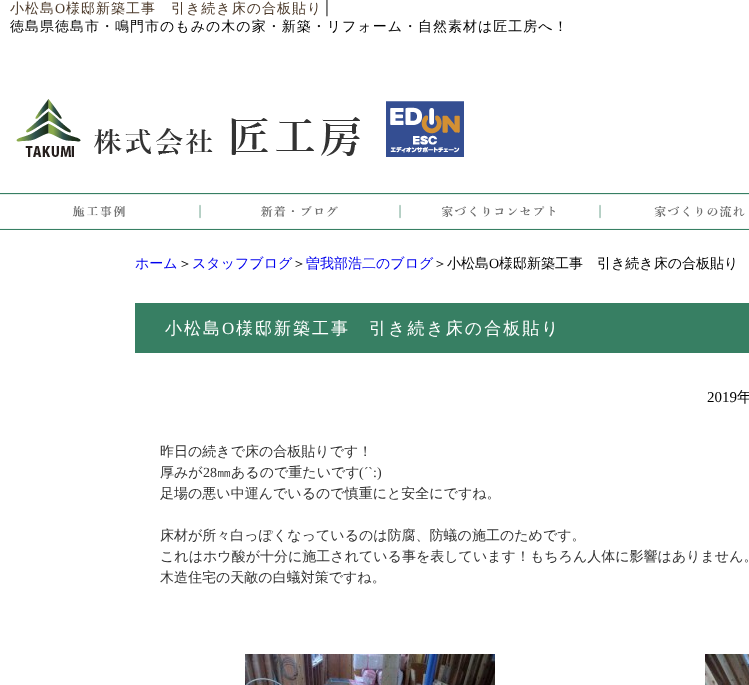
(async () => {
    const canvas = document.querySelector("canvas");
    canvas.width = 749;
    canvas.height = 685;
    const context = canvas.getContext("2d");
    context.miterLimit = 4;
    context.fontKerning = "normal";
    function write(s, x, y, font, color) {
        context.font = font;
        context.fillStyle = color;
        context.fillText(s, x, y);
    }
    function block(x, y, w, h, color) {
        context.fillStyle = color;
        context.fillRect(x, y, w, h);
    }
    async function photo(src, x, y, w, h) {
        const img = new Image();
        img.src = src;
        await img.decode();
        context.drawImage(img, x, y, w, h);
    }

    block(0, 0, 749, 685, "rgb(255, 255, 255)");
    context.letterSpacing = "1px";
    write("小松島", 10, 13, "500 14px WenQuanYi Zen Hei", "rgb(76, 58, 42)");
    write("O", 55, 13, "14px Liberation Serif", "rgb(76, 58, 42)");
    write("様邸新築工事　引き続き床の合板貼り", 66, 13, "500 14px WenQuanYi Zen Hei", "rgb(76, 58, 42)");
    write("│", 322, 12, "14px Liberation Serif", "rgb(0, 0, 0)");
    write("徳島県徳島市・鳴門市のもみの木の家・新築・リフォーム・自然素材は匠工房へ！", 10, 31, "500 14px WenQuanYi Zen Hei", "rgb(0, 0, 0)");
    await photo("media/1.png", 16, 99, 448, 58);
    await photo("media/2.png", 0, 193, 200, 37);
    await photo("media/3.png", 200, 193, 200, 37);
    await photo("media/4.png", 400, 193, 200, 37);
    await photo("media/5.png", 600, 193, 149, 37);
    context.letterSpacing = "0px";
    write("ホーム", 135, 268, "500 14px WenQuanYi Zen Hei", "rgb(0, 0, 238)");
    write("＞", 178, 268, "500 14px WenQuanYi Zen Hei", "rgb(0, 0, 0)");
    write("スタッフブログ", 192, 268, "500 14px WenQuanYi Zen Hei", "rgb(0, 0, 238)");
    write("＞", 292, 268, "500 14px WenQuanYi Zen Hei", "rgb(0, 0, 0)");
    write("曽我部浩二のブログ", 306, 268, "500 14px WenQuanYi Zen Hei", "rgb(0, 0, 238)");
    write("＞小松島", 433, 268, "500 14px WenQuanYi Zen Hei", "rgb(0, 0, 0)");
    write("O", 489, 268, "14px Liberation Serif", "rgb(0, 0, 0)");
    write("様邸新築工事　引き続き床の合板貼り", 499, 268, "500 14px WenQuanYi Zen Hei", "rgb(0, 0, 0)");
    block(135, 303, 614, 50, "rgb(55, 127, 99)");
    context.letterSpacing = "2px";
    write("小松島", 165, 334, "500 17px WenQuanYi Zen Hei", "rgb(255, 255, 255)");
    write("O", 222, 334, "17px Liberation Serif", "rgb(255, 255, 255)");
    write("様邸新築工事　引き続き床の合板貼り", 236, 334, "500 17px WenQuanYi Zen Hei", "rgb(255, 255, 255)");
    context.letterSpacing = "0px";
    write("2019", 707, 402, "15px Liberation Serif", "rgb(0, 0, 0)");
    write("年", 737, 402, "500 15px WenQuanYi Zen Hei", "rgb(0, 0, 0)");
    write("昨日の続きで床の合板貼りです！", 160, 456, "500 14px WenQuanYi Zen Hei", "rgb(51, 51, 51)");
    write("厚みが", 160, 477, "500 14px WenQuanYi Zen Hei", "rgb(51, 51, 51)");
    write("28", 203, 477, "14px Liberation Serif", "rgb(51, 51, 51)");
    write("㎜あるので重たいです", 217, 477, "500 14px WenQuanYi Zen Hei", "rgb(51, 51, 51)");
    write("(´`:)", 359, 477, "14px Liberation Serif", "rgb(51, 51, 51)");
    write("足場の悪い中運んでいるので慎重にと安全にですね。", 160, 498, "500 14px WenQuanYi Zen Hei", "rgb(51, 51, 51)");
    write("床材が所々白っぽくなっているのは防腐、防蟻の施工のためです。", 160, 540, "500 14px WenQuanYi Zen Hei", "rgb(51, 51, 51)");
    write("これはホウ酸が十分に施工されている事を表しています！もちろん人体に影響はありません。", 160, 561, "500 14px WenQuanYi Zen Hei", "rgb(51, 51, 51)");
    write("木造住宅の天敵の白蟻対策ですね。", 160, 582, "500 14px WenQuanYi Zen Hei", "rgb(51, 51, 51)");
    await photo("media/6.png", 245, 654, 250, 31);
    await photo("media/7.png", 705, 654, 44, 31);
})();
